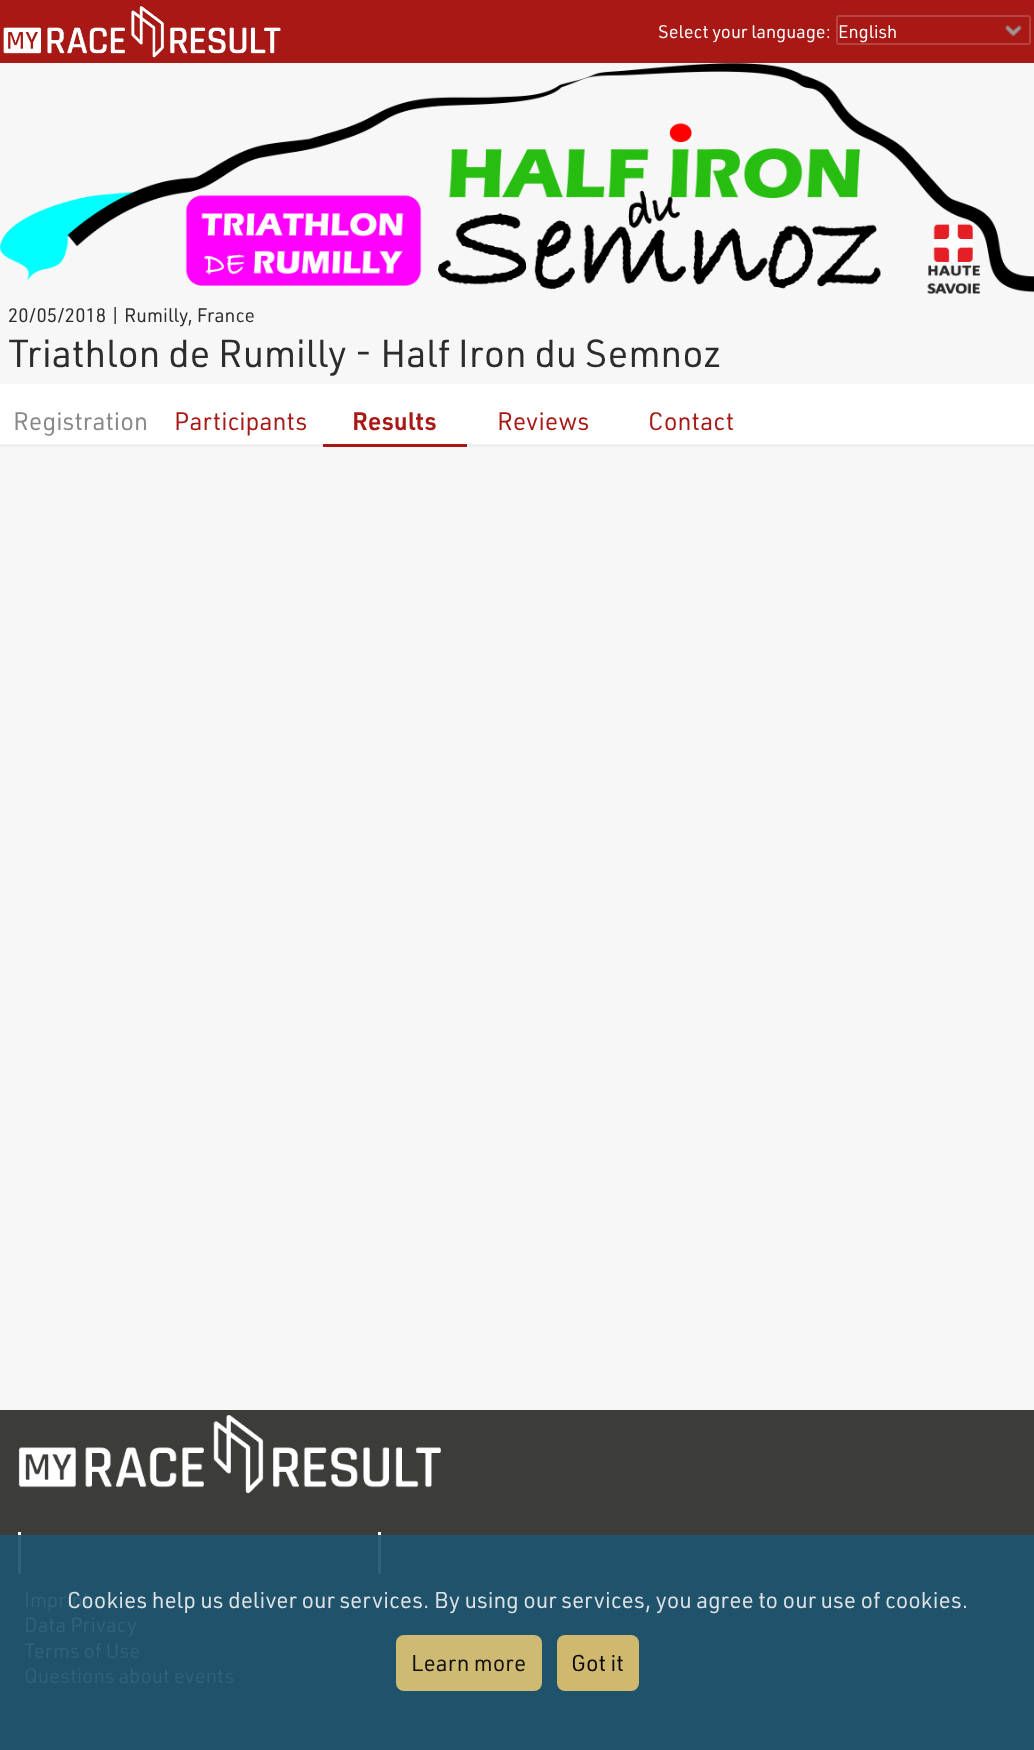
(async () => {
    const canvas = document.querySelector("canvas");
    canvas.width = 1034;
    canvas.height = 1750;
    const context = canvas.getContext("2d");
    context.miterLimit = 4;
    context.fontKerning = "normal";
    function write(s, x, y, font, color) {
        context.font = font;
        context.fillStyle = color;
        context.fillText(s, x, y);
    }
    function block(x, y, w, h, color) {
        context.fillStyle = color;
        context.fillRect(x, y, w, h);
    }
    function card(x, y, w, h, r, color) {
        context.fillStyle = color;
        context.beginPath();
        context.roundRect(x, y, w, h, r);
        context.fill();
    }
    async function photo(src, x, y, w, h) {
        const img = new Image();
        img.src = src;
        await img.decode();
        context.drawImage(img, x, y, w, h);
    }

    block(0, 0, 1034, 1750, "rgb(247, 247, 247)");
    block(0, 0, 1034, 63, "rgb(168, 24, 21)");
    await photo("media/1.png", 3, 6, 278, 52);
    write("Select your language:", 658, 38, "18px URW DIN", "rgb(255, 255, 255)");
    await photo("media/2.png", 1004, 25, 18, 12);
    context.beginPath();
    context.roundRect(837, 16, 193, 28, 2);
    context.strokeStyle = "rgb(183, 67, 64)";
    context.lineWidth = 2;
    context.stroke();
    write("English", 838, 38, "18px URW DIN", "rgb(255, 255, 255)");
    await photo("media/3.png", 0, 63, 1034, 231);
    write("20/05/2018 | Rumilly, France", 8, 322, "19.1px URW DIN", "rgb(44, 44, 44)");
    write("Triathlon de Rumilly - Half Iron du Semnoz", 8, 367, "38.25px URW DIN", "rgb(44, 44, 44)");
    block(0, 384, 1034, 60, "rgb(255, 255, 255)");
    block(0, 444, 1034, 3, "rgb(238, 238, 238)");
    write("Registration", 13, 430, "24.75px URW DIN", "rgb(136, 136, 136)");
    write("Participants", 174, 430, "24.75px URW DIN", "rgb(168, 24, 21)");
    block(323, 444, 144, 3, "rgb(168, 24, 21)");
    write("Results", 352, 430, "600 24.75px URW DIN", "rgb(168, 24, 21)");
    write("Reviews", 497, 430, "24.75px URW DIN", "rgb(168, 24, 21)");
    write("Contact", 648, 430, "24.75px URW DIN", "rgb(168, 24, 21)");
    block(0, 1535, 1034, 215, "rgb(31, 82, 107)");
    write("Imprint", 24, 1607, "20.25px URW DIN", "rgb(47, 98, 123)");
    write("Cookies help us deliver our services. By using our services, you agree to our use of cookies.", 67, 1608, "22.5px URW DIN", "rgb(222, 226, 228)");
    card(396, 1635, 146, 56, 8, "rgba(221, 195, 116, 0.92)");
    write("Learn more", 411, 1671, "22.5px URW DIN", "rgb(16, 15, 9)");
    card(557, 1635, 82, 56, 8, "rgb(208, 184, 111)");
    write("Got it", 571, 1671, "22.5px URW DIN", "rgb(5, 5, 5)");
    block(0, 1410, 1034, 125, "rgb(60, 60, 59)");
    await photo("media/4.png", 18, 1415, 423, 79);
    block(378, 1532, 3, 3, "rgb(255, 255, 255)");
    block(378, 1535, 3, 39, "rgb(47, 98, 123)");
    block(18, 1532, 3, 3, "rgb(255, 255, 255)");
    block(18, 1535, 3, 39, "rgb(47, 98, 123)");
    write("Data Privacy", 24, 1632, "20.25px URW DIN", "rgb(47, 98, 123)");
    write("Terms of Use", 24, 1658, "20.25px URW DIN", "rgb(47, 98, 123)");
    write("Questions about events", 24, 1683, "20.25px URW DIN", "rgb(47, 98, 123)");
})();
